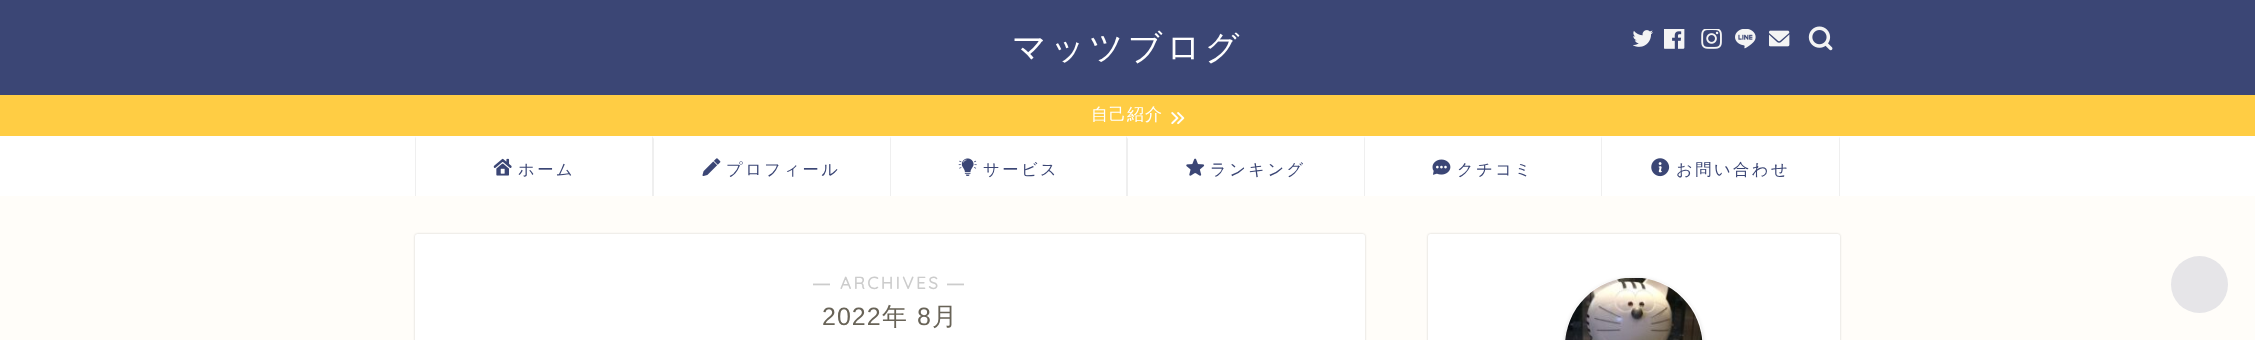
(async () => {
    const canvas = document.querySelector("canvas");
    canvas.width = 2255;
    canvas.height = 340;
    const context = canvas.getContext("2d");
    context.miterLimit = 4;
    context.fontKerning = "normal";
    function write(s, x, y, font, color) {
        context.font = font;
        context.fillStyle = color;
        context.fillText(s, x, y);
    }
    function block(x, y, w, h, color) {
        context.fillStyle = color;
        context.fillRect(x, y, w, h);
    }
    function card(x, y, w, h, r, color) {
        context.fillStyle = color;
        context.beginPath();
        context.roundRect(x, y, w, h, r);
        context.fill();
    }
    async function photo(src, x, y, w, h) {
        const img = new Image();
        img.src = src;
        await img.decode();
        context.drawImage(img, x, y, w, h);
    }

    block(0, 0, 2255, 340, "rgb(255, 253, 249)");
    block(0, 0, 2255, 95, "rgb(59, 70, 117)");
    context.letterSpacing = "3.75px";
    write("マッツブログ", 1012, 59, "500 34px WenQuanYi Zen Hei", "rgb(255, 255, 255)");
    await photo("media/1.png", 1633, 30, 20, 17);
    await photo("media/2.png", 1664, 29, 21, 20);
    await photo("media/3.png", 1701, 29, 21, 20);
    await photo("media/4.png", 1735, 29, 21, 20);
    await photo("media/5.png", 1769, 30, 21, 17);
    await photo("media/6.png", 1808, 26, 25, 25);
    block(0, 95, 2255, 41, "rgb(255, 205, 68)");
    context.letterSpacing = "1px";
    write("自己紹介", 1091, 120, "500 17px WenQuanYi Zen Hei", "rgb(255, 255, 255)");
    await photo("media/7.png", 1171, 112, 14, 13);
    block(0, 136, 2255, 60, "rgb(255, 255, 255)");
    context.fillStyle = "rgb(239, 239, 239)";
    context.beginPath();
    context.moveTo(415, 196);
    context.lineTo(415, 136);
    context.lineTo(416, 139);
    context.lineTo(416, 196);
    context.closePath();
    context.fill();
    await photo("media/8.png", 493, 158, 19, 18);
    context.letterSpacing = "2.5px";
    write("ホーム", 518, 175, "500 16.25px WenQuanYi Zen Hei", "rgb(59, 70, 117)");
    context.fillStyle = "rgb(239, 239, 239)";
    context.beginPath();
    context.moveTo(652, 196);
    context.lineTo(652, 136);
    context.lineTo(654, 139);
    context.lineTo(654, 196);
    context.closePath();
    context.fill();
    await photo("media/9.png", 702, 158, 19, 18);
    write("プロフィール", 726, 175, "500 16.25px WenQuanYi Zen Hei", "rgb(59, 70, 117)");
    context.fillStyle = "rgb(239, 239, 239)";
    context.beginPath();
    context.moveTo(890, 196);
    context.lineTo(890, 136);
    context.lineTo(891, 139);
    context.lineTo(891, 196);
    context.closePath();
    context.fill();
    await photo("media/10.png", 958, 158, 19, 18);
    write("サービス", 983, 175, "500 16.25px WenQuanYi Zen Hei", "rgb(59, 70, 117)");
    context.fillStyle = "rgb(239, 239, 239)";
    context.beginPath();
    context.moveTo(1126, 196);
    context.lineTo(1126, 136);
    context.lineTo(1128, 139);
    context.lineTo(1128, 196);
    context.closePath();
    context.fill();
    await photo("media/11.png", 1186, 158, 19, 18);
    write("ランキング", 1210, 175, "500 16.25px WenQuanYi Zen Hei", "rgb(59, 70, 117)");
    context.fillStyle = "rgb(239, 239, 239)";
    context.beginPath();
    context.moveTo(1364, 196);
    context.lineTo(1364, 136);
    context.lineTo(1365, 139);
    context.lineTo(1365, 196);
    context.closePath();
    context.fill();
    await photo("media/12.png", 1432, 159, 19, 16);
    write("クチコミ", 1457, 175, "500 16.25px WenQuanYi Zen Hei", "rgb(59, 70, 117)");
    context.fillStyle = "rgb(239, 239, 239)";
    context.beginPath();
    context.moveTo(1840, 136);
    context.lineTo(1840, 196);
    context.lineTo(1839, 196);
    context.lineTo(1839, 139);
    context.closePath();
    context.fill();
    context.beginPath();
    context.moveTo(1601, 196);
    context.lineTo(1601, 136);
    context.lineTo(1602, 139);
    context.lineTo(1602, 196);
    context.closePath();
    context.fill();
    await photo("media/13.png", 1651, 158, 19, 19);
    write("お問い合わせ", 1676, 175, "500 16.25px WenQuanYi Zen Hei", "rgb(59, 70, 117)");
    context.fillStyle = "rgba(0, 0, 0, 0.18)";
    context.filter = "blur(1px)";
    context.beginPath();
    context.roundRect(415, 234, 950, 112, 2.5);
    context.fill();
    context.filter = "none";
    card(415, 234, 950, 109, 2.5, "rgb(255, 255, 255)");
    write("―", 813, 289, "bold 17px Liberation Sans", "rgb(204, 204, 204)");
    write("ARCHIVES", 840, 289, "bold 17px Quicksand", "rgb(204, 204, 204)");
    write("―", 947, 289, "bold 17px Liberation Sans", "rgb(204, 204, 204)");
    context.letterSpacing = "1px";
    write("2022", 822, 325, "25px Liberation Sans", "rgb(104, 99, 87)");
    write("年", 882, 325, "500 25px WenQuanYi Zen Hei", "rgb(104, 99, 87)");
    write("8", 917, 325, "25px Liberation Sans", "rgb(104, 99, 87)");
    write("月", 932, 325, "500 25px WenQuanYi Zen Hei", "rgb(104, 99, 87)");
    context.fillStyle = "rgba(0, 0, 0, 0.18)";
    context.filter = "blur(1px)";
    context.beginPath();
    context.roundRect(1428, 234, 412, 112, 2.5);
    context.fill();
    context.filter = "none";
    card(1428, 234, 412, 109, 2.5, "rgb(255, 255, 255)");
    context.fillStyle = "rgba(0, 0, 0, 0.18)";
    context.filter = "blur(2px)";
    context.beginPath();
    context.roundRect(1565, 279, 138, 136, 68.5);
    context.fill();
    context.filter = "none";
    card(1565, 278, 138, 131, 68.5, "rgb(255, 255, 255)");
    await photo("media/14.png", 1565, 278, 138, 62);
    context.fillStyle = "rgb(230, 229, 232)";
    context.beginPath();
    context.arc(2199.5, 284.5, 28.5, 0, Math.PI * 2);
    context.fill();
})();
